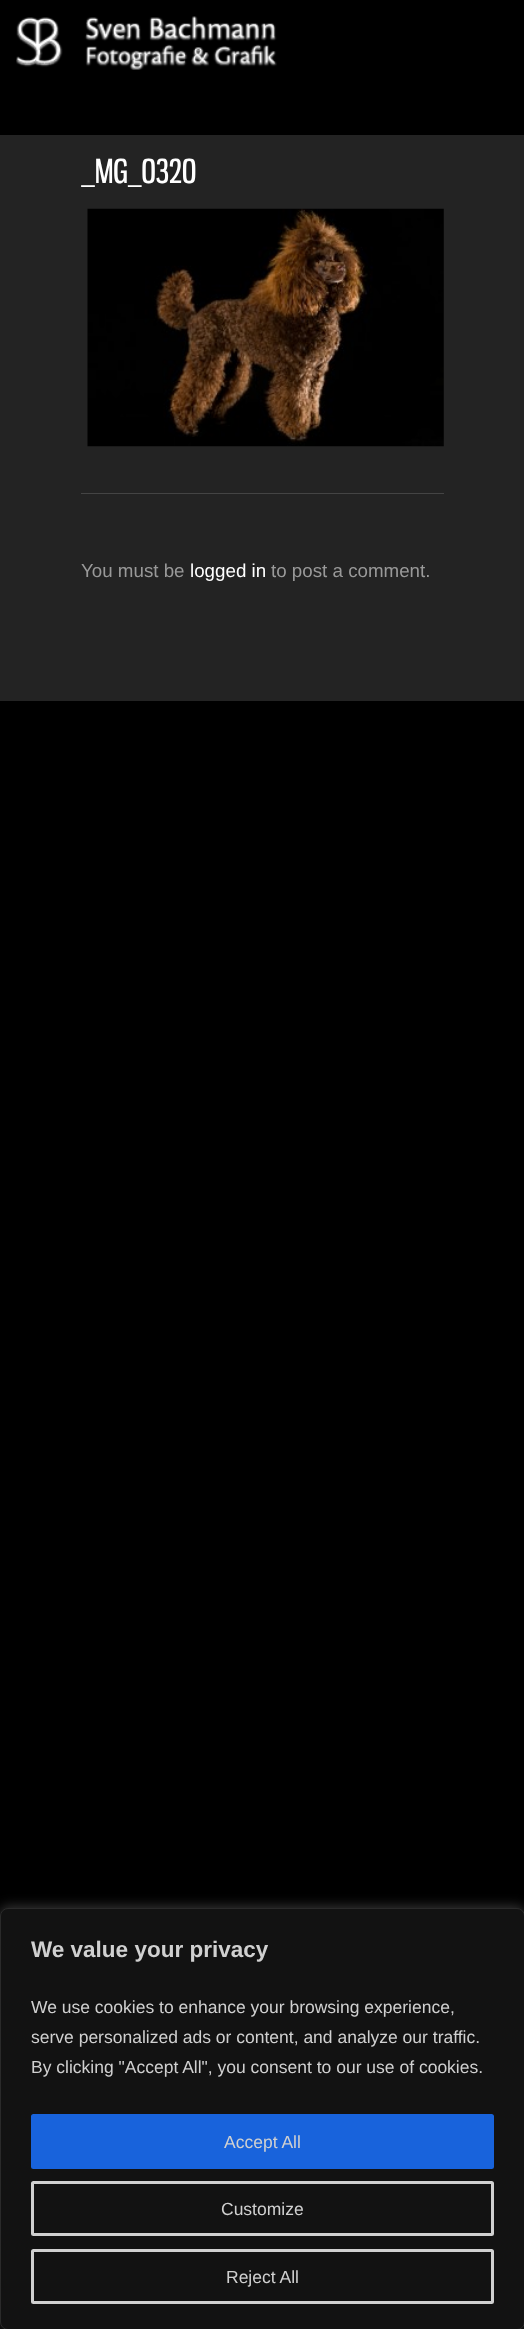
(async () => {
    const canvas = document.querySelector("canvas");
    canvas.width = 524;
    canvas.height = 2329;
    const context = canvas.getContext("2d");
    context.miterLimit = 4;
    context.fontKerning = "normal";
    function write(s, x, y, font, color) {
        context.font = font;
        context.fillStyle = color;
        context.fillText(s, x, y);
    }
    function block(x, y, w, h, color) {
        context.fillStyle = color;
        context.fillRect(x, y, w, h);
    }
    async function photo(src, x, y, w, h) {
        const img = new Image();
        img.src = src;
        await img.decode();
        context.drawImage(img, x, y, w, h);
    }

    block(0, 0, 524, 2329, "rgb(0, 0, 0)");
    await photo("media/1.png", 16, 16, 261, 54);
    block(0, 135, 524, 566, "rgb(35, 35, 35)");
    block(81, 493, 363, 1, "rgb(68, 68, 68)");
    write("_MG_0320", 81, 183, "32.5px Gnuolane", "rgb(255, 255, 255)");
    await photo("media/2.png", 87, 208, 357, 239);
    write("You must be", 81, 577, "18.75px Liberation Sans", "rgb(153, 153, 153)");
    write("logged in", 190, 577, "18.75px Liberation Sans", "rgb(255, 255, 255)");
    write("to post a comment.", 271, 577, "18.75px Liberation Sans", "rgb(153, 153, 153)");
    context.fillStyle = "rgba(172, 171, 171, 0.3)";
    context.filter = "blur(6px)";
    context.beginPath();
    context.roundRect(0, 1906, 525, 423, 8);
    context.fill();
    context.filter = "none";
    context.fillStyle = "rgb(18, 18, 18)";
    context.beginPath();
    context.roundRect(0.5, 1908.5, 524, 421, 7.5);
    context.fill();
    context.strokeStyle = "rgb(42, 42, 42)";
    context.stroke();
    write("We value your privacy", 31, 1957, "bold 22.5px Liberation Sans", "rgb(208, 208, 208)");
    write("We use cookies to enhance your browsing experience,", 31, 2013, "17.5px Liberation Sans", "rgb(208, 208, 208)");
    write("serve personalized ads or content, and analyze our traffic.", 31, 2043, "17.5px Liberation Sans", "rgb(208, 208, 208)");
    write("By clicking \"Accept All\", you consent to our use of cookies.", 31, 2073, "17.5px Liberation Sans", "rgb(208, 208, 208)");
    context.fillStyle = "rgb(24, 99, 220)";
    context.beginPath();
    context.roundRect(32.5, 2115.5, 460, 52, 1);
    context.fill();
    context.strokeStyle = "rgb(24, 99, 220)";
    context.lineWidth = 3;
    context.stroke();
    write("Accept All", 224, 2148, "17.5px Liberation Sans", "rgb(208, 208, 208)");
    context.beginPath();
    context.roundRect(32.5, 2182.5, 460, 52, 1);
    context.strokeStyle = "rgb(208, 208, 208)";
    context.stroke();
    write("Customize", 221, 2215, "17.5px Liberation Sans", "rgb(208, 208, 208)");
    context.beginPath();
    context.roundRect(32.5, 2250.5, 460, 52, 1);
    context.stroke();
    write("Reject All", 226, 2283, "17.5px Liberation Sans", "rgb(208, 208, 208)");
})();
